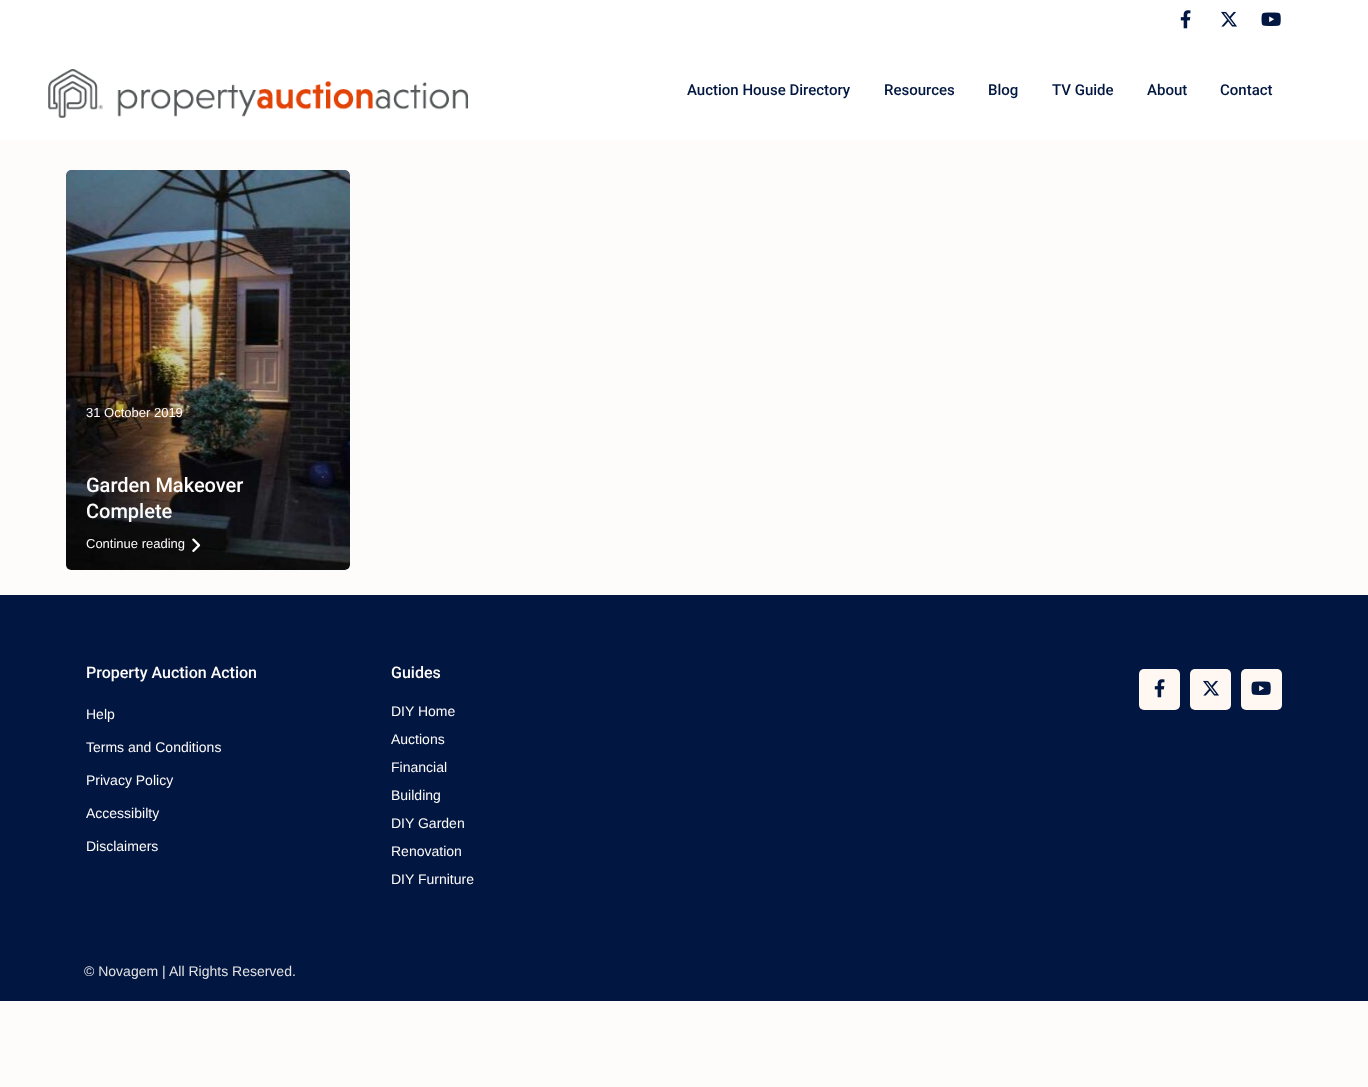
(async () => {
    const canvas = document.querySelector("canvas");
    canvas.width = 1368;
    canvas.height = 1087;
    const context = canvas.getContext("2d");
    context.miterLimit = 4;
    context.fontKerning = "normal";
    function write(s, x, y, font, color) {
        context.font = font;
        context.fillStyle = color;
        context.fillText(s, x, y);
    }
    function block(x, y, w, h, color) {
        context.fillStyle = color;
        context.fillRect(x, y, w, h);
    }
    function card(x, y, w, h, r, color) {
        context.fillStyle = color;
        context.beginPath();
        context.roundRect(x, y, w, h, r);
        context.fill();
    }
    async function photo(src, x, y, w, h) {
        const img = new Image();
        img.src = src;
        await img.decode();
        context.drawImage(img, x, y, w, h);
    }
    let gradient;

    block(0, 0, 1368, 1087, "rgb(253, 252, 251)");
    block(0, 0, 1368, 140, "rgb(255, 255, 255)");
    await photo("media/1.png", 1180, 10, 11, 19);
    await photo("media/2.png", 1221, 11, 16, 16);
    await photo("media/3.png", 1261, 12, 20, 14);
    await photo("media/4.png", 48, 69, 420, 49);
    write("Auction House Directory", 687, 95, "500 15px Roboto", "rgb(1, 22, 64)");
    write("Resources", 884, 95, "500 15px Roboto", "rgb(1, 22, 64)");
    write("Blog", 988, 95, "500 15px Roboto", "rgb(1, 22, 64)");
    write("TV Guide", 1052, 95, "500 15px Roboto", "rgb(1, 22, 64)");
    write("About", 1147, 95, "500 15px Roboto", "rgb(1, 22, 64)");
    write("Contact", 1220, 95, "500 15px Roboto", "rgb(1, 22, 64)");
    card(66, 170, 284, 400, 5, "rgb(255, 255, 255)");
    await photo("media/5.png", 66, 170, 284, 400);
    gradient = context.createLinearGradient(19, 504, 397, 236);
    gradient.addColorStop(0, "rgba(0, 0, 0, 0.38)");
    gradient.addColorStop(1, "rgba(0, 0, 0, 0)");
    context.fillStyle = gradient;
    context.beginPath();
    context.roundRect(66, 170, 284, 400, 5);
    context.fill();
    write("31 October 2019", 86, 417, "13px Liberation Sans", "rgb(254, 251, 251)");
    write("Garden Makeover", 86, 492, "500 20px Roboto", "rgb(254, 251, 251)");
    write("Complete", 86, 518, "500 20px Roboto", "rgb(254, 251, 251)");
    write("Continue reading", 86, 548, "13px Liberation Sans", "rgb(254, 251, 251)");
    await photo("media/6.png", 192, 538, 9, 14);
    block(0, 595, 1368, 406, "rgb(1, 22, 64)");
    write("Property Auction Action", 86, 678, "500 16px Roboto", "rgb(254, 251, 251)");
    write("Help", 86, 719, "14px Liberation Sans", "rgb(254, 251, 251)");
    write("Terms and Conditions", 86, 752, "14px Liberation Sans", "rgb(254, 251, 251)");
    write("Privacy Policy", 86, 785, "14px Liberation Sans", "rgb(254, 251, 251)");
    write("Accessibilty", 86, 818, "14px Liberation Sans", "rgb(254, 251, 251)");
    write("Disclaimers", 86, 851, "14px Liberation Sans", "rgb(254, 251, 251)");
    write("Guides", 391, 678, "500 16px Roboto", "rgb(254, 251, 251)");
    write("DIY Home", 391, 716, "14px Liberation Sans", "rgb(254, 251, 251)");
    write("Auctions", 391, 744, "14px Liberation Sans", "rgb(254, 251, 251)");
    write("Financial", 391, 772, "14px Liberation Sans", "rgb(254, 251, 251)");
    write("Building", 391, 800, "14px Liberation Sans", "rgb(254, 251, 251)");
    write("DIY Garden", 391, 828, "14px Liberation Sans", "rgb(254, 251, 251)");
    write("Renovation", 391, 856, "14px Liberation Sans", "rgb(254, 251, 251)");
    write("DIY Furniture", 391, 884, "14px Liberation Sans", "rgb(254, 251, 251)");
    card(1139, 669, 41, 41, 5, "rgb(255, 247, 241)");
    await photo("media/7.png", 1154, 679, 11, 19);
    card(1190, 669, 41, 41, 5, "rgb(255, 247, 241)");
    await photo("media/8.png", 1203, 680, 16, 16);
    card(1241, 669, 41, 41, 5, "rgb(255, 247, 241)");
    await photo("media/9.png", 1251, 681, 20, 14);
    write("© Novagem |", 84, 976, "14px Liberation Sans", "rgb(227, 227, 227)");
    write("All Rights Reserved.", 169, 976, "14px Liberation Sans", "rgb(227, 227, 227)");
})();
